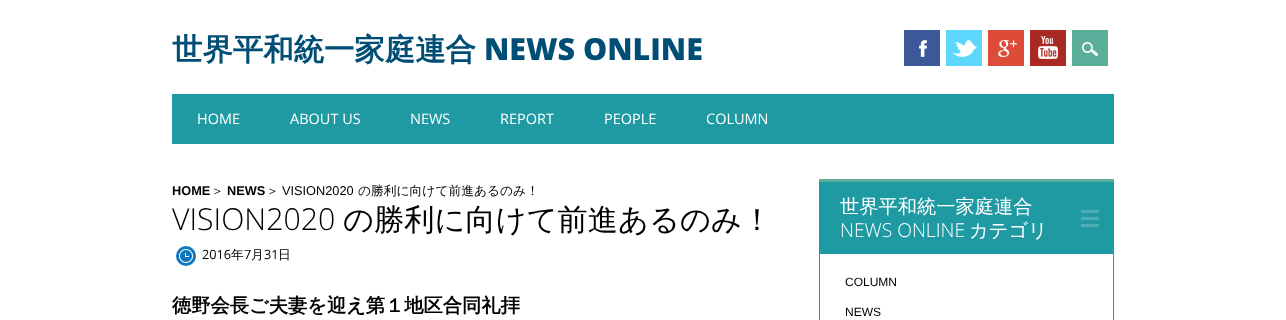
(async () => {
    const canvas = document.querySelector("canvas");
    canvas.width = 1286;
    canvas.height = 320;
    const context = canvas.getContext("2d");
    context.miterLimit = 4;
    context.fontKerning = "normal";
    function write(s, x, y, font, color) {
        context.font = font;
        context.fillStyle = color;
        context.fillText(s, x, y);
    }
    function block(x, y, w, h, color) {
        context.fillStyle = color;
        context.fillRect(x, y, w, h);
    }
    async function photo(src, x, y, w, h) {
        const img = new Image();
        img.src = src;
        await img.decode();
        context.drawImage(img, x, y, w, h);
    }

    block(0, 0, 1286, 320, "rgb(255, 255, 255)");
    write("世界平和統一家庭連合", 172, 60, "bold 30.4px WenQuanYi Zen Hei", "rgb(0, 78, 117)");
    write("NEWS ONLINE", 484, 60, "800 30.4px Open Sans", "rgb(0, 78, 117)");
    block(904, 30, 36, 36, "rgb(59, 89, 152)");
    await photo("media/1.png", 919, 40, 8, 17);
    block(946, 30, 36, 36, "rgb(93, 215, 252)");
    await photo("media/2.png", 953, 40, 24, 17);
    block(988, 30, 36, 36, "rgb(221, 75, 57)");
    await photo("media/3.png", 998, 40, 19, 17);
    block(1030, 30, 36, 36, "rgb(169, 41, 37)");
    await photo("media/4.png", 1038, 36, 20, 23);
    block(1072, 30, 36, 36, "rgb(90, 173, 152)");
    await photo("media/5.png", 1082, 42, 16, 14);
    block(172, 94, 942, 50, "rgb(31, 154, 163)");
    write("HOME", 197, 124, "14.5px Open Sans", "rgb(255, 255, 255)");
    write("ABOUT US", 290, 124, "14.5px Open Sans", "rgb(255, 255, 255)");
    write("NEWS", 410, 124, "14.5px Open Sans", "rgb(255, 255, 255)");
    write("REPORT", 500, 124, "14.5px Open Sans", "rgb(255, 255, 255)");
    write("PEOPLE", 604, 124, "14.5px Open Sans", "rgb(255, 255, 255)");
    write("COLUMN", 706, 124, "14.5px Open Sans", "rgb(255, 255, 255)");
    write("HOME", 172, 195, "bold 12.75px Liberation Sans", "rgb(0, 0, 0)");
    write("＞", 211, 195, "500 12.75px WenQuanYi Zen Hei", "rgb(0, 0, 0)");
    write("NEWS", 227, 195, "bold 12.75px Liberation Sans", "rgb(0, 0, 0)");
    write("＞", 266, 195, "500 12.75px WenQuanYi Zen Hei", "rgb(0, 0, 0)");
    write("VISION2020", 282, 195, "12.75px Liberation Sans", "rgb(0, 0, 0)");
    write("の勝利に向けて前進あるのみ！", 358, 195, "500 12.75px WenQuanYi Zen Hei", "rgb(0, 0, 0)");
    write("VISION2020", 172, 230, "300 30.25px Open Sans", "rgb(0, 0, 0)");
    write("の勝利に向けて前進あるのみ！", 343, 230, "500 30.25px WenQuanYi Zen Hei", "rgb(0, 0, 0)");
    context.fillStyle = "rgb(15, 120, 191)";
    context.beginPath();
    context.arc(186, 256, 10, 0, Math.PI * 2);
    context.fill();
    await photo("media/6.png", 179, 249, 14, 14);
    write("2016", 202, 259, "12.75px Open Sans", "rgb(0, 0, 0)");
    write("年", 231, 259, "500 12.75px WenQuanYi Zen Hei", "rgb(0, 0, 0)");
    write("7", 244, 259, "12.75px Open Sans", "rgb(0, 0, 0)");
    write("月", 251, 259, "500 12.75px WenQuanYi Zen Hei", "rgb(0, 0, 0)");
    write("31", 264, 259, "12.75px Open Sans", "rgb(0, 0, 0)");
    write("日", 278, 259, "500 12.75px WenQuanYi Zen Hei", "rgb(0, 0, 0)");
    write("徳野会長ご夫妻を迎え第１地区合同礼拝", 172, 312, "bold 19.25px WenQuanYi Zen Hei", "rgb(0, 0, 0)");
    context.fillStyle = "rgb(90, 173, 152)";
    context.beginPath();
    context.moveTo(819, 179);
    context.lineTo(1114, 179);
    context.lineTo(1113, 182);
    context.lineTo(820, 182);
    context.closePath();
    context.fill();
    context.fillStyle = "rgb(31, 154, 163)";
    context.beginPath();
    context.moveTo(1114, 179);
    context.lineTo(1114, 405);
    context.lineTo(1113, 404);
    context.lineTo(1113, 182);
    context.closePath();
    context.fill();
    context.beginPath();
    context.moveTo(819, 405);
    context.lineTo(819, 179);
    context.lineTo(820, 182);
    context.lineTo(820, 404);
    context.closePath();
    context.fill();
    block(820, 182, 293, 72, "rgb(31, 154, 163)");
    await photo("media/7.png", 1081, 210, 18, 17);
    write("世界平和統一家庭連合", 840, 213, "500 19.25px WenQuanYi Zen Hei", "rgb(255, 255, 255)");
    write("NEWS ONLINE", 840, 237, "300 19.25px Open Sans", "rgb(255, 255, 255)");
    write("カテゴリ", 969, 237, "500 19.25px WenQuanYi Zen Hei", "rgb(255, 255, 255)");
    write("COLUMN", 845, 286, "12px Liberation Sans", "rgb(0, 0, 0)");
    write("NEWS", 845, 316, "12px Liberation Sans", "rgb(0, 0, 0)");
})();
